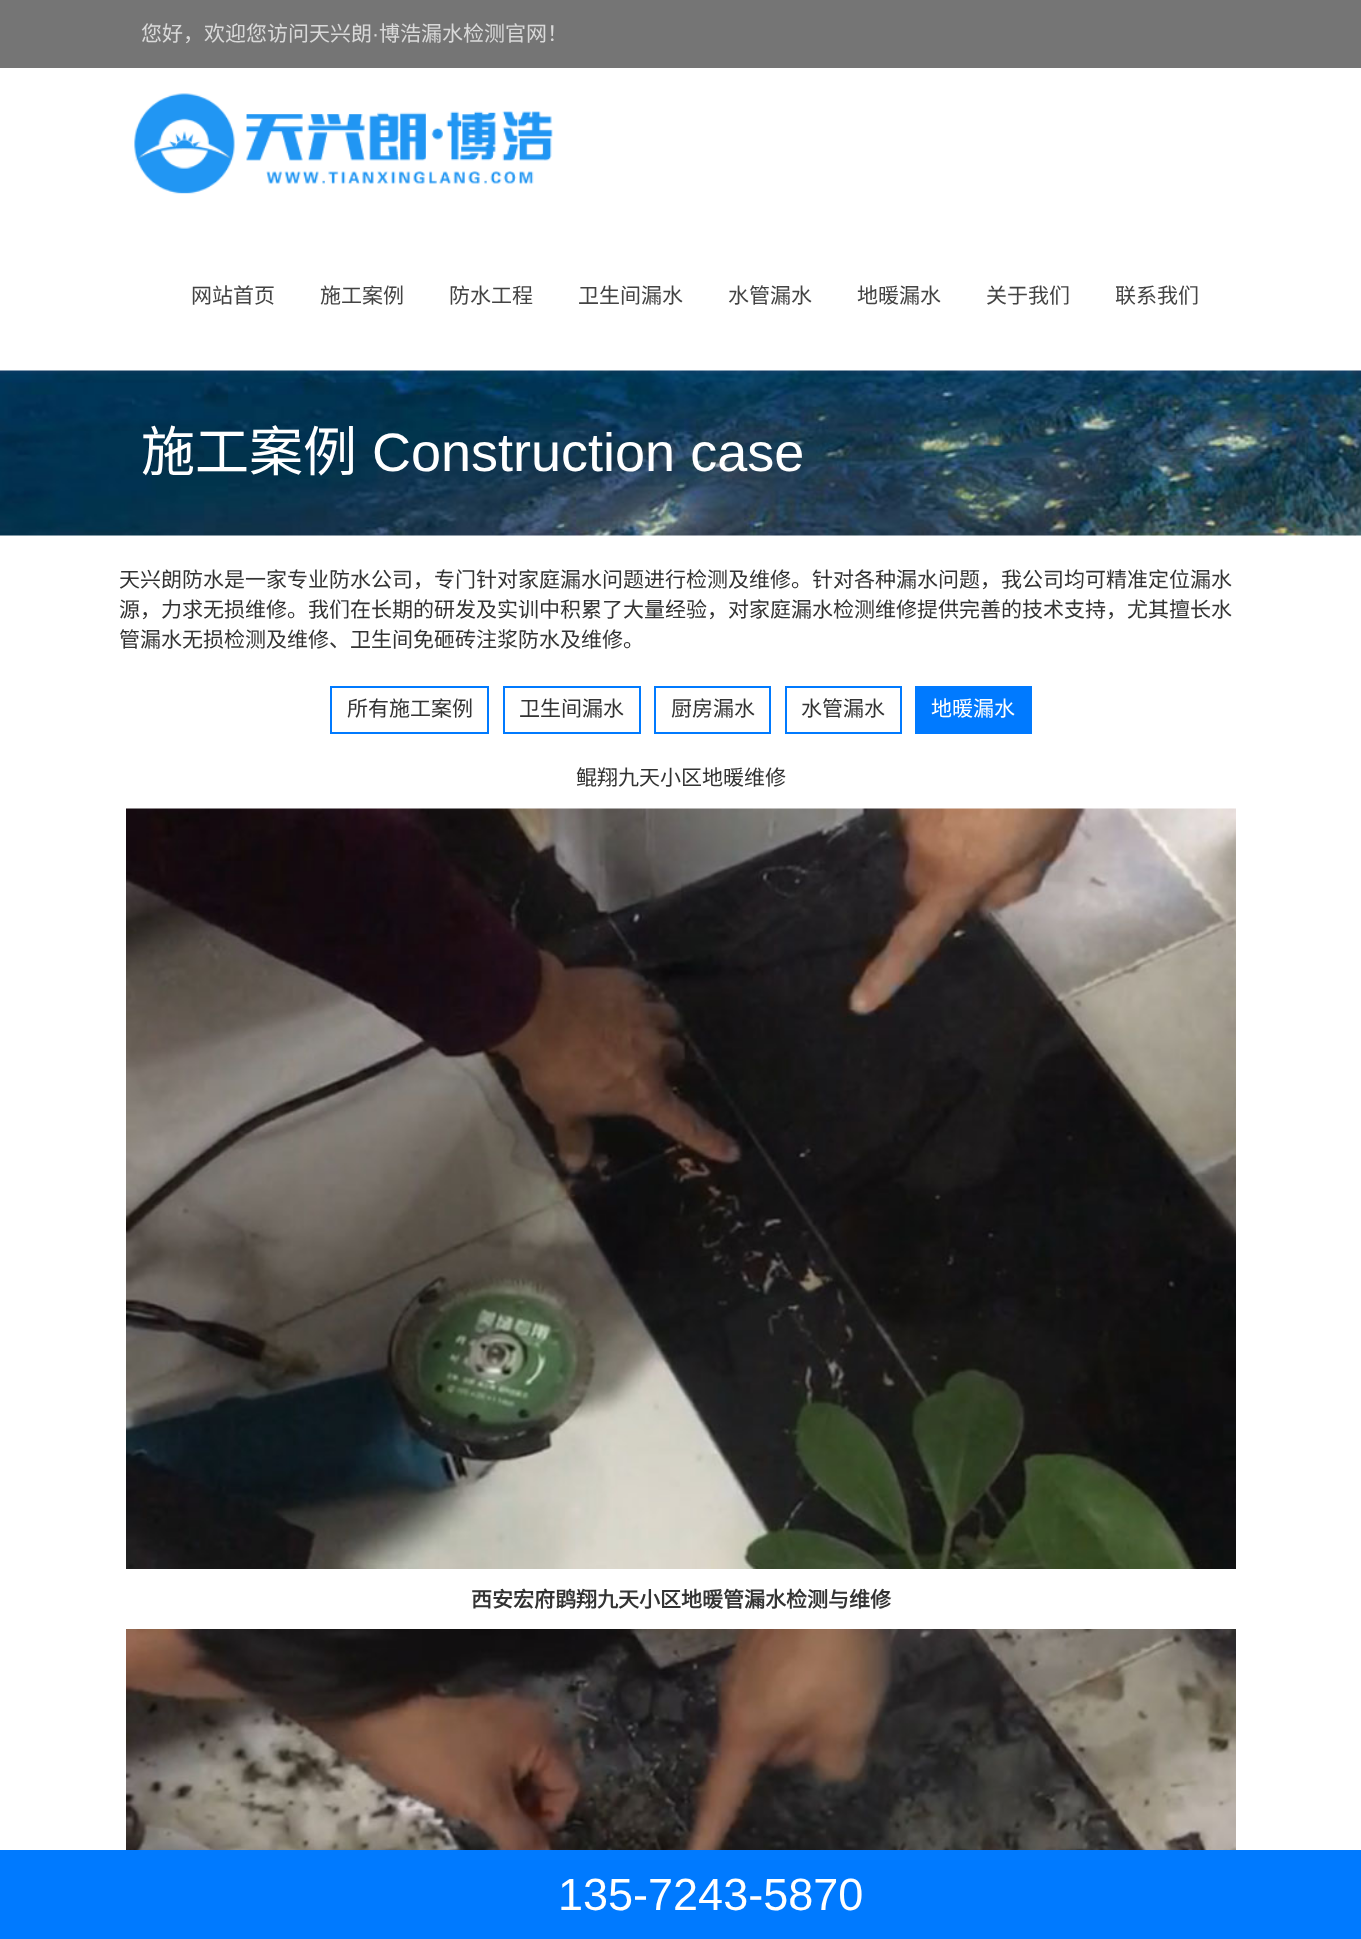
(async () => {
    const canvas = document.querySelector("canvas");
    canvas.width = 1361;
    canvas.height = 1939;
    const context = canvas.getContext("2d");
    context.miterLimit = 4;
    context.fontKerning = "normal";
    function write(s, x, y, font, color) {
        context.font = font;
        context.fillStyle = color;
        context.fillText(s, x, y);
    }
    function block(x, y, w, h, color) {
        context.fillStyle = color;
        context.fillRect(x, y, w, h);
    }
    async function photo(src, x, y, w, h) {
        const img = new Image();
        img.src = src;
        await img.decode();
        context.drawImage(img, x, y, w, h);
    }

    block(0, 0, 1361, 1939, "rgb(255, 255, 255)");
    block(0, 0, 1361, 68, "rgb(117, 117, 117)");
    write("您好，欢迎您访问天兴朗", 141, 41, "21px Noto Sans CJK SC", "rgb(217, 217, 217)");
    write("·", 372, 41, "21px Liberation Sans", "rgb(217, 217, 217)");
    write("博浩漏水检测官网！", 379, 41, "21px Noto Sans CJK SC", "rgb(217, 217, 217)");
    await photo("media/1.png", 134, 93, 419, 101);
    write("网站首页", 191, 303, "21px Noto Sans CJK SC", "rgb(67, 67, 67)");
    write("施工案例", 320, 303, "21px Noto Sans CJK SC", "rgb(67, 67, 67)");
    write("防水工程", 449, 303, "21px Noto Sans CJK SC", "rgb(67, 67, 67)");
    write("卫生间漏水", 578, 303, "21px Noto Sans CJK SC", "rgb(67, 67, 67)");
    write("水管漏水", 728, 303, "21px Noto Sans CJK SC", "rgb(67, 67, 67)");
    write("地暖漏水", 857, 303, "21px Noto Sans CJK SC", "rgb(67, 67, 67)");
    write("关于我们", 986, 303, "21px Noto Sans CJK SC", "rgb(67, 67, 67)");
    write("联系我们", 1115, 303, "21px Noto Sans CJK SC", "rgb(67, 67, 67)");
    await photo("media/2.png", 0, 370, 1361, 166);
    write("施工案例", 141, 471, "54px Noto Sans CJK SC", "rgb(255, 255, 255)");
    write("Construction case", 372, 471, "54px Liberation Sans", "rgb(255, 255, 255)");
    write("天兴朗防水是一家专业防水公司，专门针对家庭漏水问题进行检测及维修。针对各种漏水问题，我公司均可精准定位漏水", 119, 587, "21px Noto Sans CJK SC", "rgb(51, 51, 51)");
    write("源，力求无损维修。我们在长期的研发及实训中积累了大量经验，对家庭漏水检测维修提供完善的技术支持，尤其擅长水", 119, 617, "21px Noto Sans CJK SC", "rgb(51, 51, 51)");
    write("管漏水无损检测及维修、卫生间免砸砖注浆防水及维修。", 119, 647, "21px Noto Sans CJK SC", "rgb(51, 51, 51)");
    context.strokeStyle = "rgb(0, 122, 255)";
    context.lineWidth = 2;
    context.strokeRect(331, 687, 157, 46);
    write("所有施工案例", 347, 716, "21px Noto Sans CJK SC", "rgb(51, 51, 51)");
    context.strokeRect(504, 687, 136, 46);
    write("卫生间漏水", 519, 716, "21px Noto Sans CJK SC", "rgb(51, 51, 51)");
    context.strokeRect(655, 687, 115, 46);
    write("厨房漏水", 671, 716, "21px Noto Sans CJK SC", "rgb(51, 51, 51)");
    context.strokeRect(786, 687, 115, 46);
    write("水管漏水", 801, 716, "21px Noto Sans CJK SC", "rgb(51, 51, 51)");
    block(915, 686, 117, 48, "rgb(0, 122, 255)");
    write("地暖漏水", 931, 716, "21px Noto Sans CJK SC", "rgb(255, 255, 255)");
    write("鲲翔九天小区地暖维修", 576, 785, "21px Noto Sans CJK SC", "rgb(51, 51, 51)");
    await photo("media/3.png", 126, 808, 1110, 761);
    write("西安宏府鹍翔九天小区地暖管漏水检测与维修", 471, 1607, "bold 21px Noto Sans CJK SC", "rgb(51, 51, 51)");
    await photo("media/4.png", 126, 1629, 1110, 221);
    block(0, 1850, 1361, 89, "rgb(0, 122, 255)");
    write("135-7243-5870", 558, 1910, "45px Liberation Sans", "rgb(255, 255, 255)");
})();
